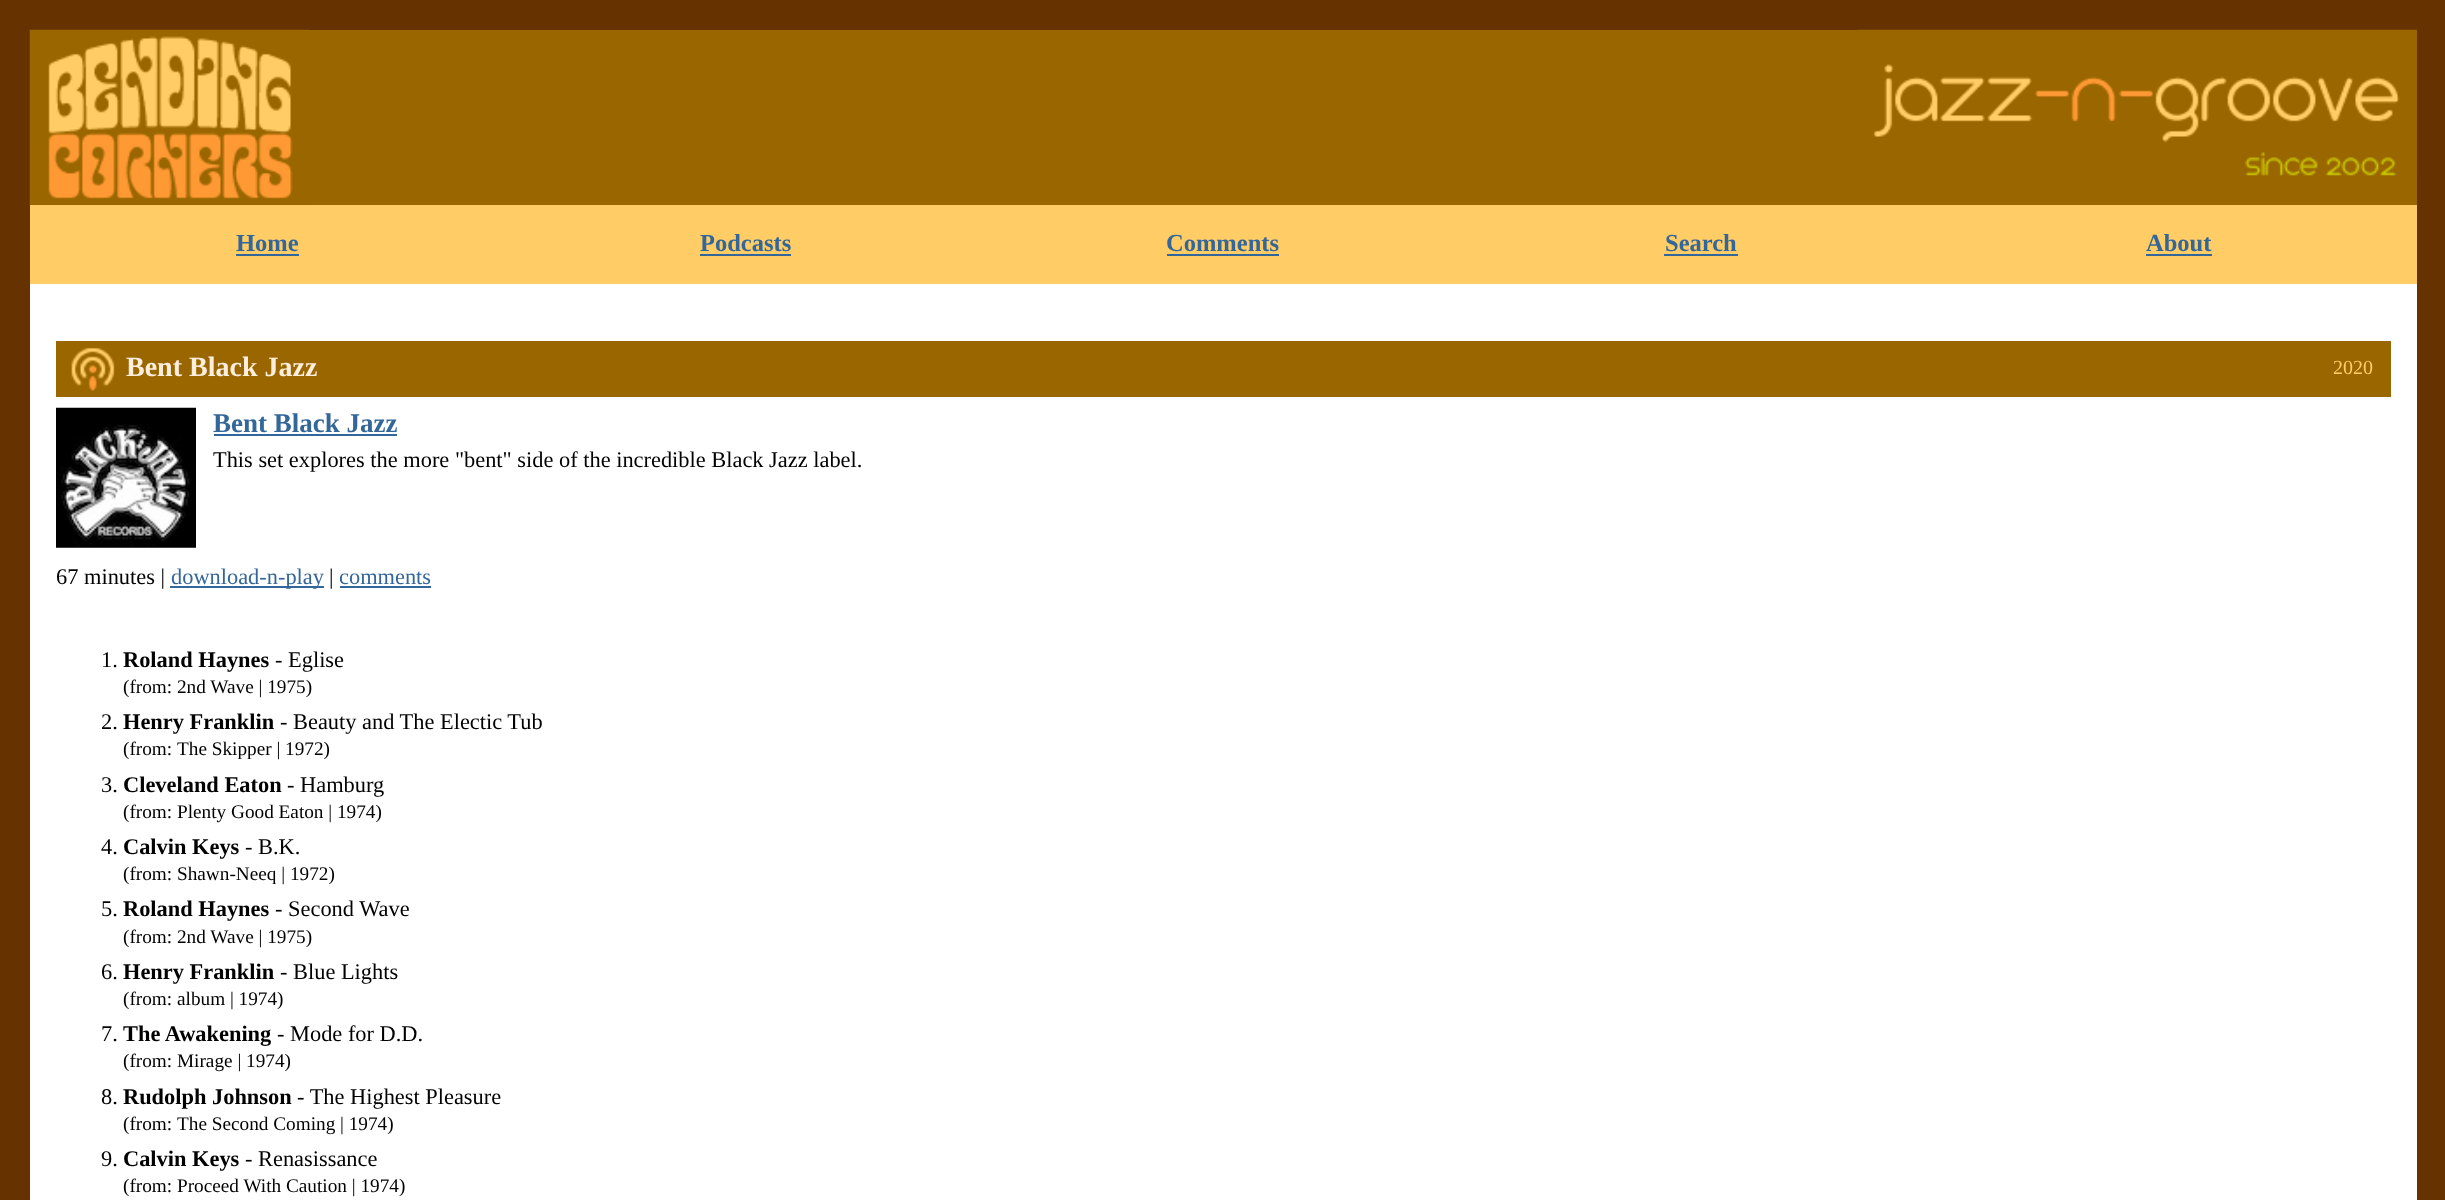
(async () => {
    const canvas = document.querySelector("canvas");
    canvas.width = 2445;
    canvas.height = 1200;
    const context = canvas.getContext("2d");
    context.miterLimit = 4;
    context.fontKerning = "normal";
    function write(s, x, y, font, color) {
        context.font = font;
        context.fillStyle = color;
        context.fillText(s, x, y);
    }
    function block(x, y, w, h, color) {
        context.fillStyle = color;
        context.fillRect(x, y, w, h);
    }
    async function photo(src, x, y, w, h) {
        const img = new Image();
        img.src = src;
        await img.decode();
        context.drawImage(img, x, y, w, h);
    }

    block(0, 0, 2445, 1200, "rgb(102, 51, 0)");
    block(30, 30, 2387, 175, "rgb(153, 102, 0)");
    await photo("media/1.png", 29, 29, 281, 176);
    await photo("media/2.png", 1857, 29, 560, 147);
    block(30, 205, 2387, 79, "rgb(255, 204, 102)");
    write("Home", 236, 251, "bold 24.5px Liberation Serif", "rgb(51, 102, 153)");
    block(236, 254, 63, 2, "rgb(51, 102, 153)");
    write("Podcasts", 700, 251, "bold 24.5px Liberation Serif", "rgb(51, 102, 153)");
    block(700, 254, 91, 2, "rgb(51, 102, 153)");
    write("Comments", 1166, 251, "bold 24.5px Liberation Serif", "rgb(51, 102, 153)");
    block(1167, 254, 112, 2, "rgb(51, 102, 153)");
    write("Search", 1665, 251, "bold 24.5px Liberation Serif", "rgb(51, 102, 153)");
    block(1664, 254, 74, 2, "rgb(51, 102, 153)");
    write("About", 2146, 251, "bold 24.5px Liberation Serif", "rgb(51, 102, 153)");
    block(2146, 254, 66, 2, "rgb(51, 102, 153)");
    block(30, 284, 2387, 916, "rgb(255, 255, 255)");
    block(56, 341, 2335, 56, "rgb(153, 102, 0)");
    await photo("media/3.png", 71, 347, 44, 44);
    write("Bent Black Jazz", 126, 376, "bold 28px Liberation Serif", "rgb(255, 238, 221)");
    write("2020", 2333, 374, "20px Liberation Serif", "rgb(255, 204, 102)");
    await photo("media/4.png", 56, 407, 140, 141);
    write("Bent Black Jazz", 213, 432, "bold 27px Liberation Serif", "rgb(51, 102, 153)");
    block(214, 434, 183, 2, "rgb(51, 102, 153)");
    write("This set explores the more \"bent\" side of the incredible Black Jazz label.", 213, 467, "22.4px Liberation Serif", "rgb(0, 0, 0)");
    write("67 minutes |", 56, 584, "22.4px Liberation Serif", "rgb(0, 0, 0)");
    block(170, 586, 154, 2, "rgb(51, 102, 153)");
    write("download-n-play", 171, 584, "22.4px Liberation Serif", "rgb(51, 102, 153)");
    write("|", 329, 584, "22.4px Liberation Serif", "rgb(0, 0, 0)");
    write("comments", 339, 584, "22.4px Liberation Serif", "rgb(51, 102, 153)");
    block(340, 586, 91, 2, "rgb(51, 102, 153)");
    write("1.", 101, 667, "22.4px Liberation Serif", "rgb(0, 0, 0)");
    write("Roland Haynes", 123, 667, "bold 22.4px Liberation Serif", "rgb(0, 0, 0)");
    write("- Eglise", 275, 667, "22.4px Liberation Serif", "rgb(0, 0, 0)");
    write("(from: 2nd Wave | 1975)", 123, 693, "19.25px Liberation Serif", "rgb(0, 0, 0)");
    write("2.", 101, 729, "22.4px Liberation Serif", "rgb(0, 0, 0)");
    write("Henry Franklin", 123, 729, "bold 22.4px Liberation Serif", "rgb(0, 0, 0)");
    write("- Beauty and The Electic Tub", 280, 729, "22.4px Liberation Serif", "rgb(0, 0, 0)");
    write("(from:", 123, 755, "19.25px Liberation Serif", "rgb(0, 0, 0)");
    write("The Skipper | 1972)", 177, 755, "19.25px Liberation Serif", "rgb(0, 0, 0)");
    write("3.", 101, 792, "22.4px Liberation Serif", "rgb(0, 0, 0)");
    write("Cleveland Eaton", 123, 792, "bold 22.4px Liberation Serif", "rgb(0, 0, 0)");
    write("- Hamburg", 287, 792, "22.4px Liberation Serif", "rgb(0, 0, 0)");
    write("(from: Plenty Good Eaton | 1974)", 123, 818, "19.25px Liberation Serif", "rgb(0, 0, 0)");
    write("4.", 101, 854, "22.4px Liberation Serif", "rgb(0, 0, 0)");
    write("Calvin Keys", 123, 854, "bold 22.4px Liberation Serif", "rgb(0, 0, 0)");
    write("- B.K.", 245, 854, "22.4px Liberation Serif", "rgb(0, 0, 0)");
    write("(from: Shawn-Neeq | 1972)", 123, 880, "19.25px Liberation Serif", "rgb(0, 0, 0)");
    write("5.", 101, 916, "22.4px Liberation Serif", "rgb(0, 0, 0)");
    write("Roland Haynes", 123, 916, "bold 22.4px Liberation Serif", "rgb(0, 0, 0)");
    write("- Second Wave", 275, 916, "22.4px Liberation Serif", "rgb(0, 0, 0)");
    write("(from: 2nd Wave | 1975)", 123, 943, "19.25px Liberation Serif", "rgb(0, 0, 0)");
    write("6.", 101, 979, "22.4px Liberation Serif", "rgb(0, 0, 0)");
    write("Henry Franklin", 123, 979, "bold 22.4px Liberation Serif", "rgb(0, 0, 0)");
    write("- Blue Lights", 280, 979, "22.4px Liberation Serif", "rgb(0, 0, 0)");
    write("(from: album | 1974)", 123, 1005, "19.25px Liberation Serif", "rgb(0, 0, 0)");
    write("7.", 101, 1041, "22.4px Liberation Serif", "rgb(0, 0, 0)");
    write("The Awakening", 123, 1041, "bold 22.4px Liberation Serif", "rgb(0, 0, 0)");
    write("- Mode for D.D.", 277, 1041, "22.4px Liberation Serif", "rgb(0, 0, 0)");
    write("(from: Mirage | 1974)", 123, 1067, "19.25px Liberation Serif", "rgb(0, 0, 0)");
    write("8.", 101, 1104, "22.4px Liberation Serif", "rgb(0, 0, 0)");
    write("Rudolph Johnson", 123, 1104, "bold 22.4px Liberation Serif", "rgb(0, 0, 0)");
    write("- The Highest Pleasure", 297, 1104, "22.4px Liberation Serif", "rgb(0, 0, 0)");
    write("(from:", 123, 1130, "19.25px Liberation Serif", "rgb(0, 0, 0)");
    write("The Second Coming | 1974)", 177, 1130, "19.25px Liberation Serif", "rgb(0, 0, 0)");
    write("9.", 101, 1166, "22.4px Liberation Serif", "rgb(0, 0, 0)");
    write("Calvin Keys", 123, 1166, "bold 22.4px Liberation Serif", "rgb(0, 0, 0)");
    write("- Renasissance", 245, 1166, "22.4px Liberation Serif", "rgb(0, 0, 0)");
    write("(from: Proceed With Caution | 1974)", 123, 1192, "19.25px Liberation Serif", "rgb(0, 0, 0)");
})();
